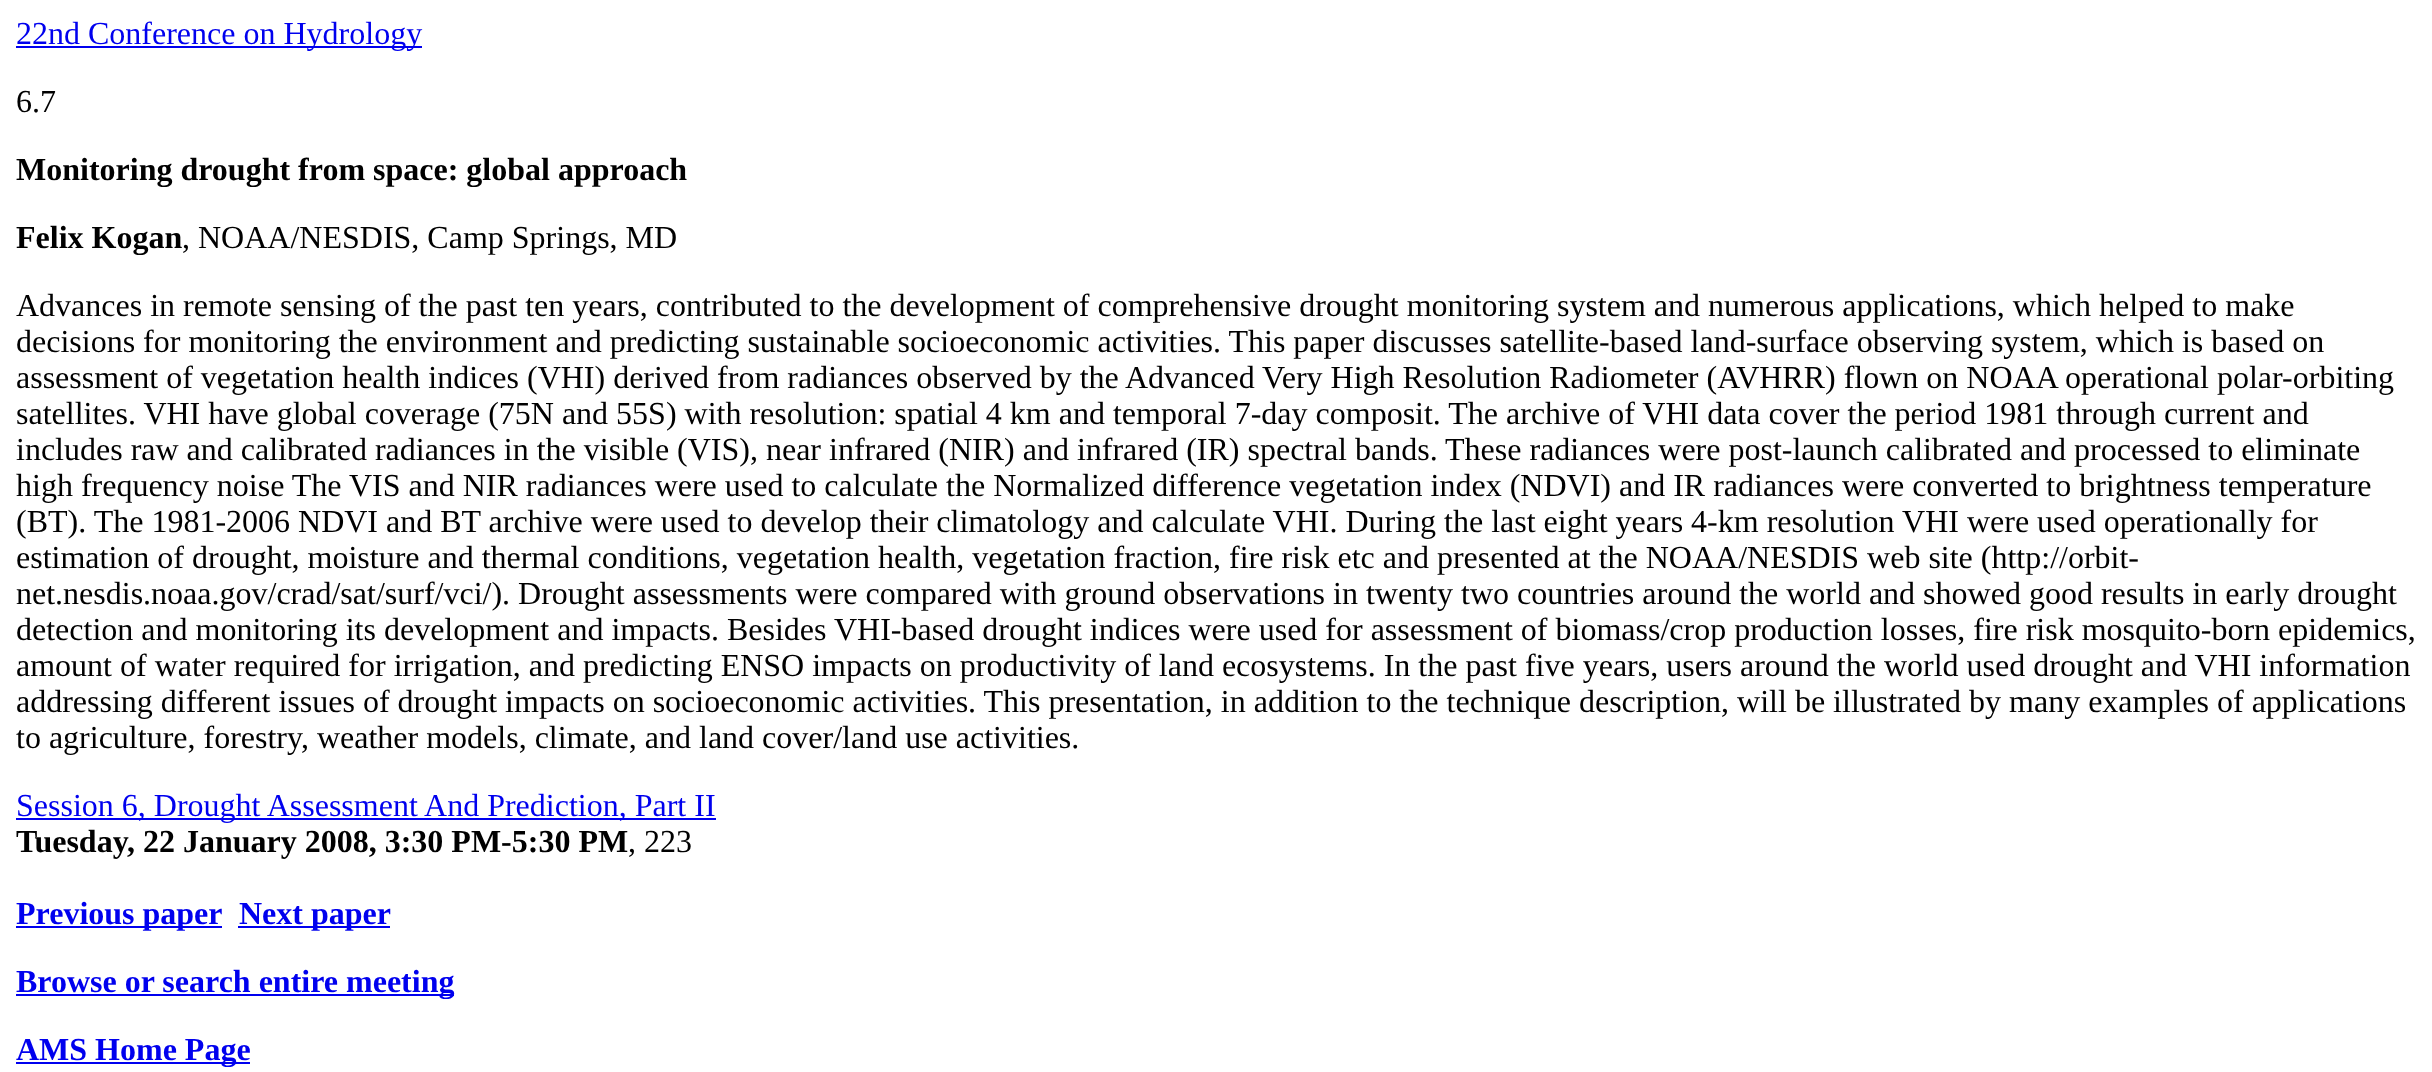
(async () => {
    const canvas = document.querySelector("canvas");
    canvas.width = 2432;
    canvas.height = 1072;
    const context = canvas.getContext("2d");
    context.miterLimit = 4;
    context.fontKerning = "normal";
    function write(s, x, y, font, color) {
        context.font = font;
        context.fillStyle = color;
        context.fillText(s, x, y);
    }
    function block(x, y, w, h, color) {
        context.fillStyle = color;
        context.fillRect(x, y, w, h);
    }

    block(0, 0, 2432, 1072, "rgb(255, 255, 255)");
    block(16, 46, 406, 2, "rgb(0, 0, 238)");
    write("22nd Conference on Hydrology", 16, 44, "32px Liberation Serif", "rgb(0, 0, 238)");
    write("6.7", 16, 112, "32px Liberation Serif", "rgb(0, 0, 0)");
    write("Monitoring drought from space: global approach", 16, 180, "bold 32px Liberation Serif", "rgb(0, 0, 0)");
    write("Felix Kogan", 16, 248, "bold 32px Liberation Serif", "rgb(0, 0, 0)");
    write(", NOAA/NESDIS, Camp Springs, MD", 182, 248, "32px Liberation Serif", "rgb(0, 0, 0)");
    write("Advances in remote sensing of the past ten years, contributed to the development of comprehensive drought monitoring system and numerous applications, which helped to make", 16, 316, "32px Liberation Serif", "rgb(0, 0, 0)");
    write("decisions for monitoring the environment and predicting sustainable socioeconomic activities. This paper discusses satellite-based land-surface observing system, which is based on", 16, 352, "32px Liberation Serif", "rgb(0, 0, 0)");
    write("assessment of vegetation health indices (VHI) derived from radiances observed by the Advanced Very High Resolution Radiometer (AVHRR) flown on NOAA operational polar-orbiting", 16, 388, "32px Liberation Serif", "rgb(0, 0, 0)");
    write("satellites. VHI have global coverage (75N and 55S) with resolution: spatial 4 km and temporal 7-day composit. The archive of VHI data cover the period 1981 through current and", 16, 424, "32px Liberation Serif", "rgb(0, 0, 0)");
    write("includes raw and calibrated radiances in the visible (VIS), near infrared (NIR) and infrared (IR) spectral bands. These radiances were post-launch calibrated and processed to eliminate", 16, 460, "32px Liberation Serif", "rgb(0, 0, 0)");
    write("high frequency noise The VIS and NIR radiances were used to calculate the Normalized difference vegetation index (NDVI) and IR radiances were converted to brightness temperature", 16, 496, "32px Liberation Serif", "rgb(0, 0, 0)");
    write("(BT). The 1981-2006 NDVI and BT archive were used to develop their climatology and calculate VHI. During the last eight years 4-km resolution VHI were used operationally for", 16, 532, "32px Liberation Serif", "rgb(0, 0, 0)");
    write("estimation of drought, moisture and thermal conditions, vegetation health, vegetation fraction, fire risk etc and presented at the NOAA/NESDIS web site (http://orbit-", 16, 568, "32px Liberation Serif", "rgb(0, 0, 0)");
    write("net.nesdis.noaa.gov/crad/sat/surf/vci/). Drought assessments were compared with ground observations in twenty two countries around the world and showed good results in early drought", 16, 604, "32px Liberation Serif", "rgb(0, 0, 0)");
    write("detection and monitoring its development and impacts. Besides VHI-based drought indices were used for assessment of biomass/crop production losses, fire risk mosquito-born epidemics,", 16, 640, "32px Liberation Serif", "rgb(0, 0, 0)");
    write("amount of water required for irrigation, and predicting ENSO impacts on productivity of land ecosystems. In the past five years, users around the world used drought and VHI information", 16, 676, "32px Liberation Serif", "rgb(0, 0, 0)");
    write("addressing different issues of drought impacts on socioeconomic activities. This presentation, in addition to the technique description, will be illustrated by many examples of applications", 16, 712, "32px Liberation Serif", "rgb(0, 0, 0)");
    write("to agriculture, forestry, weather models, climate, and land cover/land use activities.", 16, 748, "32px Liberation Serif", "rgb(0, 0, 0)");
    block(16, 818, 700, 2, "rgb(0, 0, 238)");
    write("Session 6, Drought Assessment And Prediction, Part II", 16, 816, "32px Liberation Serif", "rgb(0, 0, 238)");
    write("Tuesday, 22 January 2008, 3:30 PM-5:30 PM", 16, 852, "bold 32px Liberation Serif", "rgb(0, 0, 0)");
    write(", 223", 628, 852, "32px Liberation Serif", "rgb(0, 0, 0)");
    block(16, 926, 206, 2, "rgb(0, 0, 238)");
    write("Previous paper", 16, 924, "bold 32px Liberation Serif", "rgb(0, 0, 238)");
    block(238, 926, 152, 2, "rgb(0, 0, 238)");
    write("Next paper", 239, 924, "bold 32px Liberation Serif", "rgb(0, 0, 238)");
    block(16, 994, 438, 2, "rgb(0, 0, 238)");
    write("Browse or search entire meeting", 16, 992, "bold 32px Liberation Serif", "rgb(0, 0, 238)");
    block(16, 1062, 234, 2, "rgb(0, 0, 238)");
    write("AMS Home Page", 16, 1060, "bold 32px Liberation Serif", "rgb(0, 0, 238)");
})();
